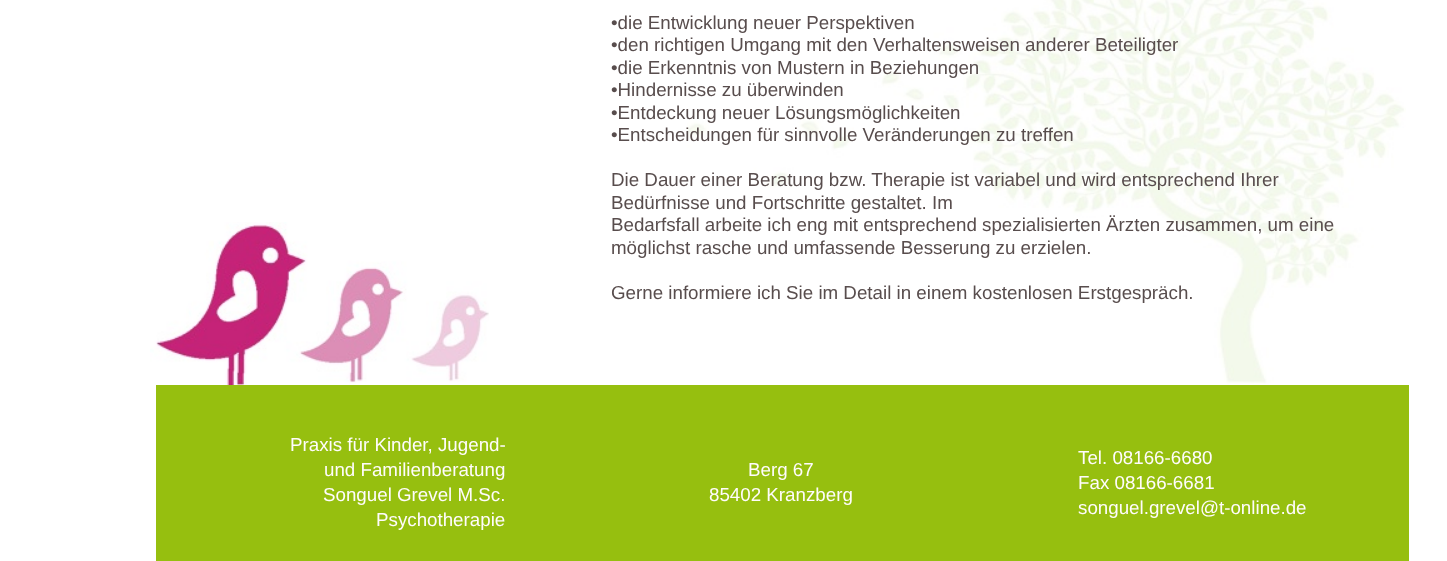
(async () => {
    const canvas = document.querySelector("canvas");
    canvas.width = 1447;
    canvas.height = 561;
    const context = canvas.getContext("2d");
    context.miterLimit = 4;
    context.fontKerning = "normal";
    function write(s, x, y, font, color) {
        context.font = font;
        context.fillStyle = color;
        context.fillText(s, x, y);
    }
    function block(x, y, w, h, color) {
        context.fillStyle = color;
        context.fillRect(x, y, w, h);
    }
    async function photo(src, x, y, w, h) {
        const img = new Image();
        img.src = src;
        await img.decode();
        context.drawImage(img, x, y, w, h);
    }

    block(0, 0, 1447, 561, "rgb(255, 255, 255)");
    await photo("media/1.png", 687, 0, 719, 384);
    await photo("media/2.png", 150, 222, 339, 165);
    write("•die Entwicklung neuer Perspektiven", 611, 29, "18.75px Liberation Sans", "rgb(88, 77, 77)");
    write("•den richtigen Umgang mit den Verhaltensweisen anderer Beteiligter", 611, 51, "18.75px Liberation Sans", "rgb(88, 77, 77)");
    write("•die Erkenntnis von Mustern in Beziehungen", 611, 74, "18.75px Liberation Sans", "rgb(88, 77, 77)");
    write("•Hindernisse zu überwinden", 611, 96, "18.75px Liberation Sans", "rgb(88, 77, 77)");
    write("•Entdeckung neuer Lösungsmöglichkeiten", 611, 119, "18.75px Liberation Sans", "rgb(88, 77, 77)");
    write("•Entscheidungen für sinnvolle Veränderungen zu treffen", 611, 141, "18.75px Liberation Sans", "rgb(88, 77, 77)");
    write("Die Dauer einer Beratung bzw. Therapie ist variabel und wird entsprechend Ihrer", 611, 186, "18.75px Liberation Sans", "rgb(88, 77, 77)");
    write("Bedürfnisse und Fortschritte gestaltet. Im", 611, 209, "18.75px Liberation Sans", "rgb(88, 77, 77)");
    write("Bedarfsfall arbeite ich eng mit entsprechend spezialisierten Ärzten zusammen, um eine", 611, 231, "18.75px Liberation Sans", "rgb(88, 77, 77)");
    write("möglichst rasche und umfassende Besserung zu erzielen.", 611, 254, "18.75px Liberation Sans", "rgb(88, 77, 77)");
    write("Gerne informiere ich Sie im Detail in einem kostenlosen Erstgespräch.", 611, 299, "18.75px Liberation Sans", "rgb(88, 77, 77)");
    block(156, 385, 1253, 176, "rgb(150, 191, 15)");
    write("Praxis für Kinder, Jugend-", 290, 451, "18.75px Liberation Sans", "rgb(255, 252, 252)");
    write("und Familienberatung", 324, 476, "18.75px Liberation Sans", "rgb(255, 252, 252)");
    write("Songuel Grevel M.Sc.", 323, 501, "18.75px Liberation Sans", "rgb(255, 252, 252)");
    write("Psychotherapie", 376, 526, "18.75px Liberation Sans", "rgb(255, 252, 252)");
    write("Berg 67", 748, 476, "18.75px Liberation Sans", "rgb(255, 252, 252)");
    write("85402 Kranzberg", 709, 501, "18.75px Liberation Sans", "rgb(255, 252, 252)");
    write("Tel. 08166-6680", 1078, 464, "18.75px Liberation Sans", "rgb(255, 252, 252)");
    write("Fax 08166-6681", 1078, 489, "18.75px Liberation Sans", "rgb(255, 252, 252)");
    write("songuel.grevel@t-online.de", 1078, 514, "18.75px Liberation Sans", "rgb(255, 252, 252)");
})();
